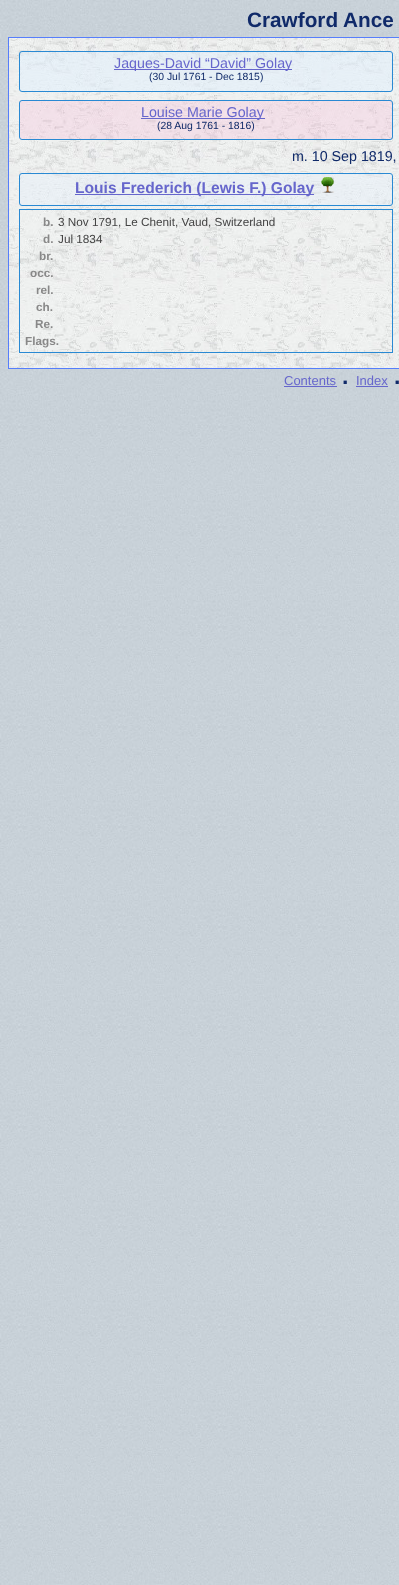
(async () => {
    const canvas = document.querySelector("canvas");
    canvas.width = 399;
    canvas.height = 1585;
    const context = canvas.getContext("2d");
    context.miterLimit = 4;
    context.fontKerning = "normal";
    function write(s, x, y, font, color) {
        context.font = font;
        context.fillStyle = color;
        context.fillText(s, x, y);
    }
    function block(x, y, w, h, color) {
        context.fillStyle = color;
        context.fillRect(x, y, w, h);
    }
    async function photo(src, x, y, w, h) {
        const img = new Image();
        img.src = src;
        await img.decode();
        context.drawImage(img, x, y, w, h);
    }

    block(0, 0, 399, 1585, "rgb(255, 255, 255)");
    await photo("media/1.png", 0, 0, 399, 1585);
    write("Crawford Ance", 247, 27, "bold 20.75px Liberation Sans", "rgb(16, 42, 105)");
    await photo("media/2.png", 9, 38, 390, 330);
    context.strokeStyle = "rgb(86, 126, 252)";
    context.strokeRect(8.5, 37.5, 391, 331);
    context.fillStyle = "rgba(224, 239, 254, 0.51)";
    context.beginPath();
    context.roundRect(19.5, 51.5, 373, 40, 2.5);
    context.fill();
    context.strokeStyle = "rgb(41, 137, 211)";
    context.stroke();
    block(114, 69, 178, 1, "rgb(102, 102, 204)");
    write("Jaques-David “David” Golay", 114, 68, "14.25px Liberation Sans", "rgb(102, 102, 204)");
    write("(30 Jul 1761 - Dec 1815)", 149, 80, "10.4px Liberation Sans", "rgb(16, 42, 105)");
    context.fillStyle = "rgba(252, 183, 214, 0.28)";
    context.beginPath();
    context.roundRect(19.5, 100.5, 373, 39, 2.5);
    context.fill();
    context.stroke();
    block(141, 118, 124, 1, "rgb(102, 102, 204)");
    write("Louise Marie Golay", 141, 117, "14.25px Liberation Sans", "rgb(102, 102, 204)");
    write("(28 Aug 1761 - 1816)", 157, 129, "10.4px Liberation Sans", "rgb(16, 42, 105)");
    write("m. 10 Sep 1819,", 292, 161, "14.25px Liberation Sans", "rgb(16, 42, 105)");
    context.fillStyle = "rgba(224, 239, 254, 0.3)";
    context.beginPath();
    context.roundRect(19.5, 173.5, 373, 32, 2.5);
    context.fill();
    context.stroke();
    block(75, 194, 239, 1, "rgb(102, 102, 204)");
    write("Louis Frederich (Lewis F.) Golay", 75, 193, "bold 15.6px Liberation Sans", "rgb(102, 102, 204)");
    await photo("media/3.png", 321, 177, 13, 16);
    context.strokeRect(19.5, 209.5, 373, 143);
    write("b.", 43, 226, "bold 11.75px Liberation Sans", "rgb(136, 136, 136)");
    write("3 Nov 1791, Le Chenit, Vaud, Switzerland", 58, 226, "11.75px Liberation Sans", "rgb(68, 68, 68)");
    write("d.", 43, 243, "bold 11.75px Liberation Sans", "rgb(136, 136, 136)");
    write("Jul 1834", 58, 243, "11.75px Liberation Sans", "rgb(68, 68, 68)");
    write("br.", 39, 260, "bold 11.75px Liberation Sans", "rgb(136, 136, 136)");
    write("occ.", 30, 277, "bold 11.75px Liberation Sans", "rgb(136, 136, 136)");
    write("rel.", 36, 294, "bold 11.75px Liberation Sans", "rgb(136, 136, 136)");
    write("ch.", 36, 311, "bold 11.75px Liberation Sans", "rgb(136, 136, 136)");
    write("Re.", 35, 328, "bold 11.75px Liberation Sans", "rgb(136, 136, 136)");
    write("Flags.", 25, 345, "bold 11.75px Liberation Sans", "rgb(136, 136, 136)");
    write("Contents", 284, 385, "13px Liberation Sans", "rgb(102, 102, 204)");
    block(284, 386, 53, 1, "rgb(102, 102, 204)");
    write("·", 342, 390, "bold 23px Liberation Sans", "rgb(16, 42, 105)");
    write("Index", 356, 385, "13px Liberation Sans", "rgb(102, 102, 204)");
    block(356, 386, 32, 1, "rgb(102, 102, 204)");
    write("·", 394, 390, "bold 23px Liberation Sans", "rgb(16, 42, 105)");
})();
